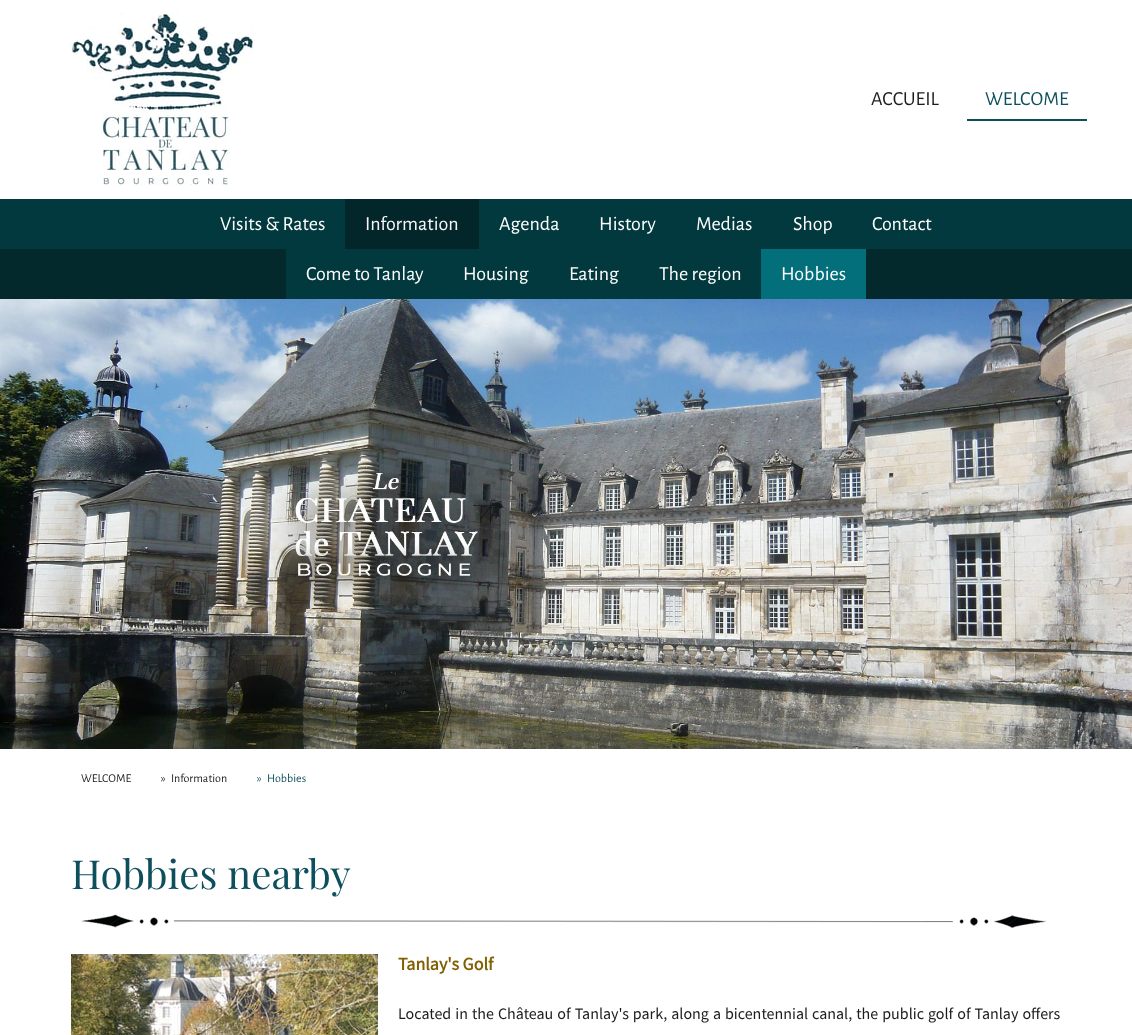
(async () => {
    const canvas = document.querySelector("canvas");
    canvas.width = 1132;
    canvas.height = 1035;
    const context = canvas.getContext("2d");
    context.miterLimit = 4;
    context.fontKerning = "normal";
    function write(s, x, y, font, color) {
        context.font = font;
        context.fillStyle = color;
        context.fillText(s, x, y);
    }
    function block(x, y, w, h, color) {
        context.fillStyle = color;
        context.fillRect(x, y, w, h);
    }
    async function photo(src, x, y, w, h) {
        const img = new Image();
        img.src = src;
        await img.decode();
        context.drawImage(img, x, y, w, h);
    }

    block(0, 0, 1132, 1035, "rgb(255, 255, 255)");
    await photo("media/1.png", 70, 10, 184, 176);
    write("ACCUEIL", 871, 105, "20px Alegreya Sans", "rgb(28, 28, 28)");
    block(967, 119, 120, 2, "rgb(14, 79, 93)");
    write("WELCOME", 985, 105, "20px Alegreya Sans", "rgb(14, 79, 93)");
    block(0, 199, 1132, 50, "rgb(2, 57, 62)");
    write("Visits & Rates", 220, 230, "20px Alegreya Sans", "rgb(255, 255, 255)");
    block(345, 199, 134, 50, "rgb(3, 38, 42)");
    write("Information", 365, 230, "20px Alegreya Sans", "rgb(247, 248, 248)");
    write("Agenda", 499, 230, "20px Alegreya Sans", "rgb(255, 255, 255)");
    write("History", 599, 230, "20px Alegreya Sans", "rgb(255, 255, 255)");
    write("Medias", 696, 230, "20px Alegreya Sans", "rgb(255, 255, 255)");
    write("Shop", 793, 230, "20px Alegreya Sans", "rgb(255, 255, 255)");
    write("Contact", 872, 230, "20px Alegreya Sans", "rgb(255, 255, 255)");
    block(0, 249, 1132, 50, "rgb(3, 41, 45)");
    block(286, 249, 475, 50, "rgb(2, 57, 62)");
    write("Come to Tanlay", 306, 280, "20px Alegreya Sans", "rgb(255, 255, 255)");
    write("Housing", 463, 280, "20px Alegreya Sans", "rgb(255, 255, 255)");
    write("Eating", 569, 280, "20px Alegreya Sans", "rgb(255, 255, 255)");
    write("The region", 659, 280, "20px Alegreya Sans", "rgb(255, 255, 255)");
    block(761, 249, 105, 50, "rgb(3, 111, 123)");
    write("Hobbies", 781, 280, "20px Alegreya Sans", "rgb(255, 255, 255)");
    await photo("media/2.png", 0, 299, 1132, 450);
    write("WELCOME", 81, 782, "12px Alegreya Sans", "rgb(28, 28, 28)");
    write("»", 161, 782, "12px Alegreya Sans", "rgb(28, 28, 28)");
    write("Information", 171, 782, "12px Alegreya Sans", "rgb(28, 28, 28)");
    write("»", 257, 782, "12px Alegreya Sans", "rgb(14, 79, 93)");
    write("Hobbies", 267, 782, "12px Alegreya Sans", "rgb(14, 79, 93)");
    write("Hobbies nearby", 71, 889, "40px Playfair Display", "rgb(14, 79, 93)");
    await photo("media/3.png", 81, 914, 966, 14);
    await photo("media/4.png", 71, 954, 307, 81);
    write("Tanlay's Golf", 398, 970, "bold 18px Source Sans Pro", "rgb(128, 96, 0)");
    context.wordSpacing = "0.8px";
    write("Located in the Château of Tanlay's park, along a bicentennial canal, the public golf of Tanlay offers", 398, 1019, "16px Source Sans Pro", "rgb(28, 28, 28)");
})();
